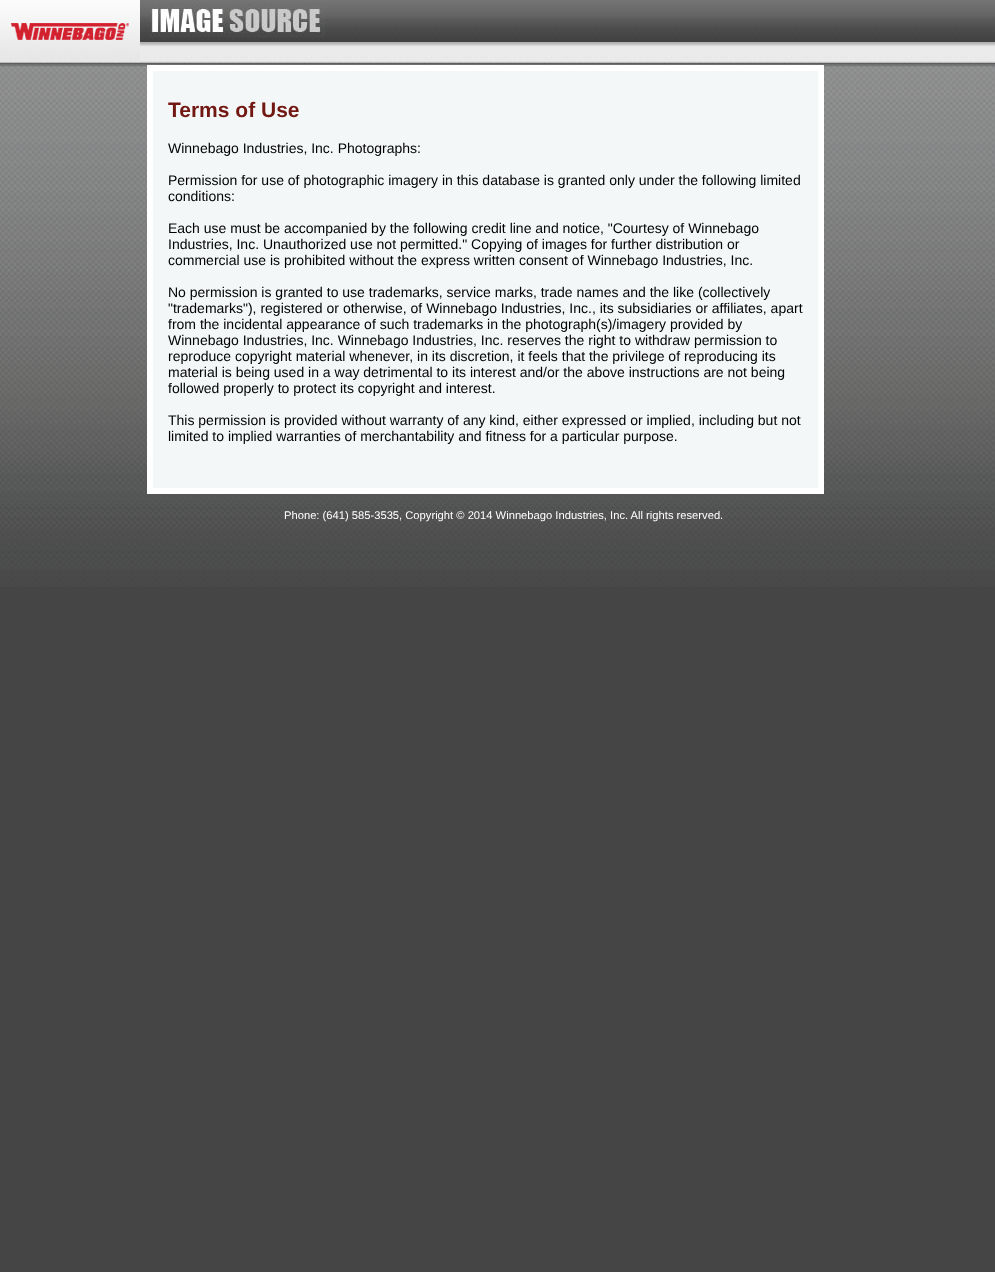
(async () => {
    const canvas = document.querySelector("canvas");
    canvas.width = 995;
    canvas.height = 1272;
    const context = canvas.getContext("2d");
    context.miterLimit = 4;
    context.fontKerning = "normal";
    function write(s, x, y, font, color) {
        context.font = font;
        context.fillStyle = color;
        context.fillText(s, x, y);
    }
    function block(x, y, w, h, color) {
        context.fillStyle = color;
        context.fillRect(x, y, w, h);
    }
    async function photo(src, x, y, w, h) {
        const img = new Image();
        img.src = src;
        await img.decode();
        context.drawImage(img, x, y, w, h);
    }

    block(0, 0, 995, 1272, "rgb(69, 69, 69)");
    await photo("media/1.png", 0, 63, 995, 524);
    await photo("media/2.png", 0, 0, 995, 63);
    await photo("media/3.png", 0, 0, 140, 62);
    await photo("media/4.png", 150, 6, 175, 31);
    context.fillStyle = "rgb(244, 247, 248)";
    context.beginPath();
    context.rect(150, 68, 671, 423);
    context.fill();
    context.strokeStyle = "rgb(255, 255, 255)";
    context.lineWidth = 6;
    context.stroke();
    write("Terms of Use", 168, 117, "bold 21px Liberation Sans", "rgb(114, 24, 18)");
    write("Winnebago Industries, Inc. Photographs:", 168, 153, "14px Liberation Sans", "rgb(0, 0, 0)");
    write("Permission for use of photographic imagery in this database is granted only under the following limited", 168, 185, "14px Liberation Sans", "rgb(0, 0, 0)");
    write("conditions:", 168, 201, "14px Liberation Sans", "rgb(0, 0, 0)");
    write("Each use must be accompanied by the following credit line and notice, \"Courtesy of Winnebago", 168, 233, "14px Liberation Sans", "rgb(0, 0, 0)");
    write("Industries, Inc. Unauthorized use not permitted.\" Copying of images for further distribution or", 168, 249, "14px Liberation Sans", "rgb(0, 0, 0)");
    write("commercial use is prohibited without the express written consent of Winnebago Industries, Inc.", 168, 265, "14px Liberation Sans", "rgb(0, 0, 0)");
    write("No permission is granted to use trademarks, service marks, trade names and the like (collectively", 168, 297, "14px Liberation Sans", "rgb(0, 0, 0)");
    write("\"trademarks\"), registered or otherwise, of Winnebago Industries, Inc., its subsidiaries or affiliates, apart", 168, 313, "14px Liberation Sans", "rgb(0, 0, 0)");
    write("from the incidental appearance of such trademarks in the photograph(s)/imagery provided by", 168, 329, "14px Liberation Sans", "rgb(0, 0, 0)");
    write("Winnebago Industries, Inc. Winnebago Industries, Inc. reserves the right to withdraw permission to", 168, 345, "14px Liberation Sans", "rgb(0, 0, 0)");
    write("reproduce copyright material whenever, in its discretion, it feels that the privilege of reproducing its", 168, 361, "14px Liberation Sans", "rgb(0, 0, 0)");
    write("material is being used in a way detrimental to its interest and/or the above instructions are not being", 168, 377, "14px Liberation Sans", "rgb(0, 0, 0)");
    write("followed properly to protect its copyright and interest.", 168, 393, "14px Liberation Sans", "rgb(0, 0, 0)");
    write("This permission is provided without warranty of any kind, either expressed or implied, including but not", 168, 425, "14px Liberation Sans", "rgb(0, 0, 0)");
    write("limited to implied warranties of merchantability and fitness for a particular purpose.", 168, 441, "14px Liberation Sans", "rgb(0, 0, 0)");
    write("Phone: (641) 585-3535, Copyright © 2014 Winnebago Industries, Inc. All rights reserved.", 284, 519, "11.2px Liberation Sans", "rgb(255, 255, 255)");
})();
